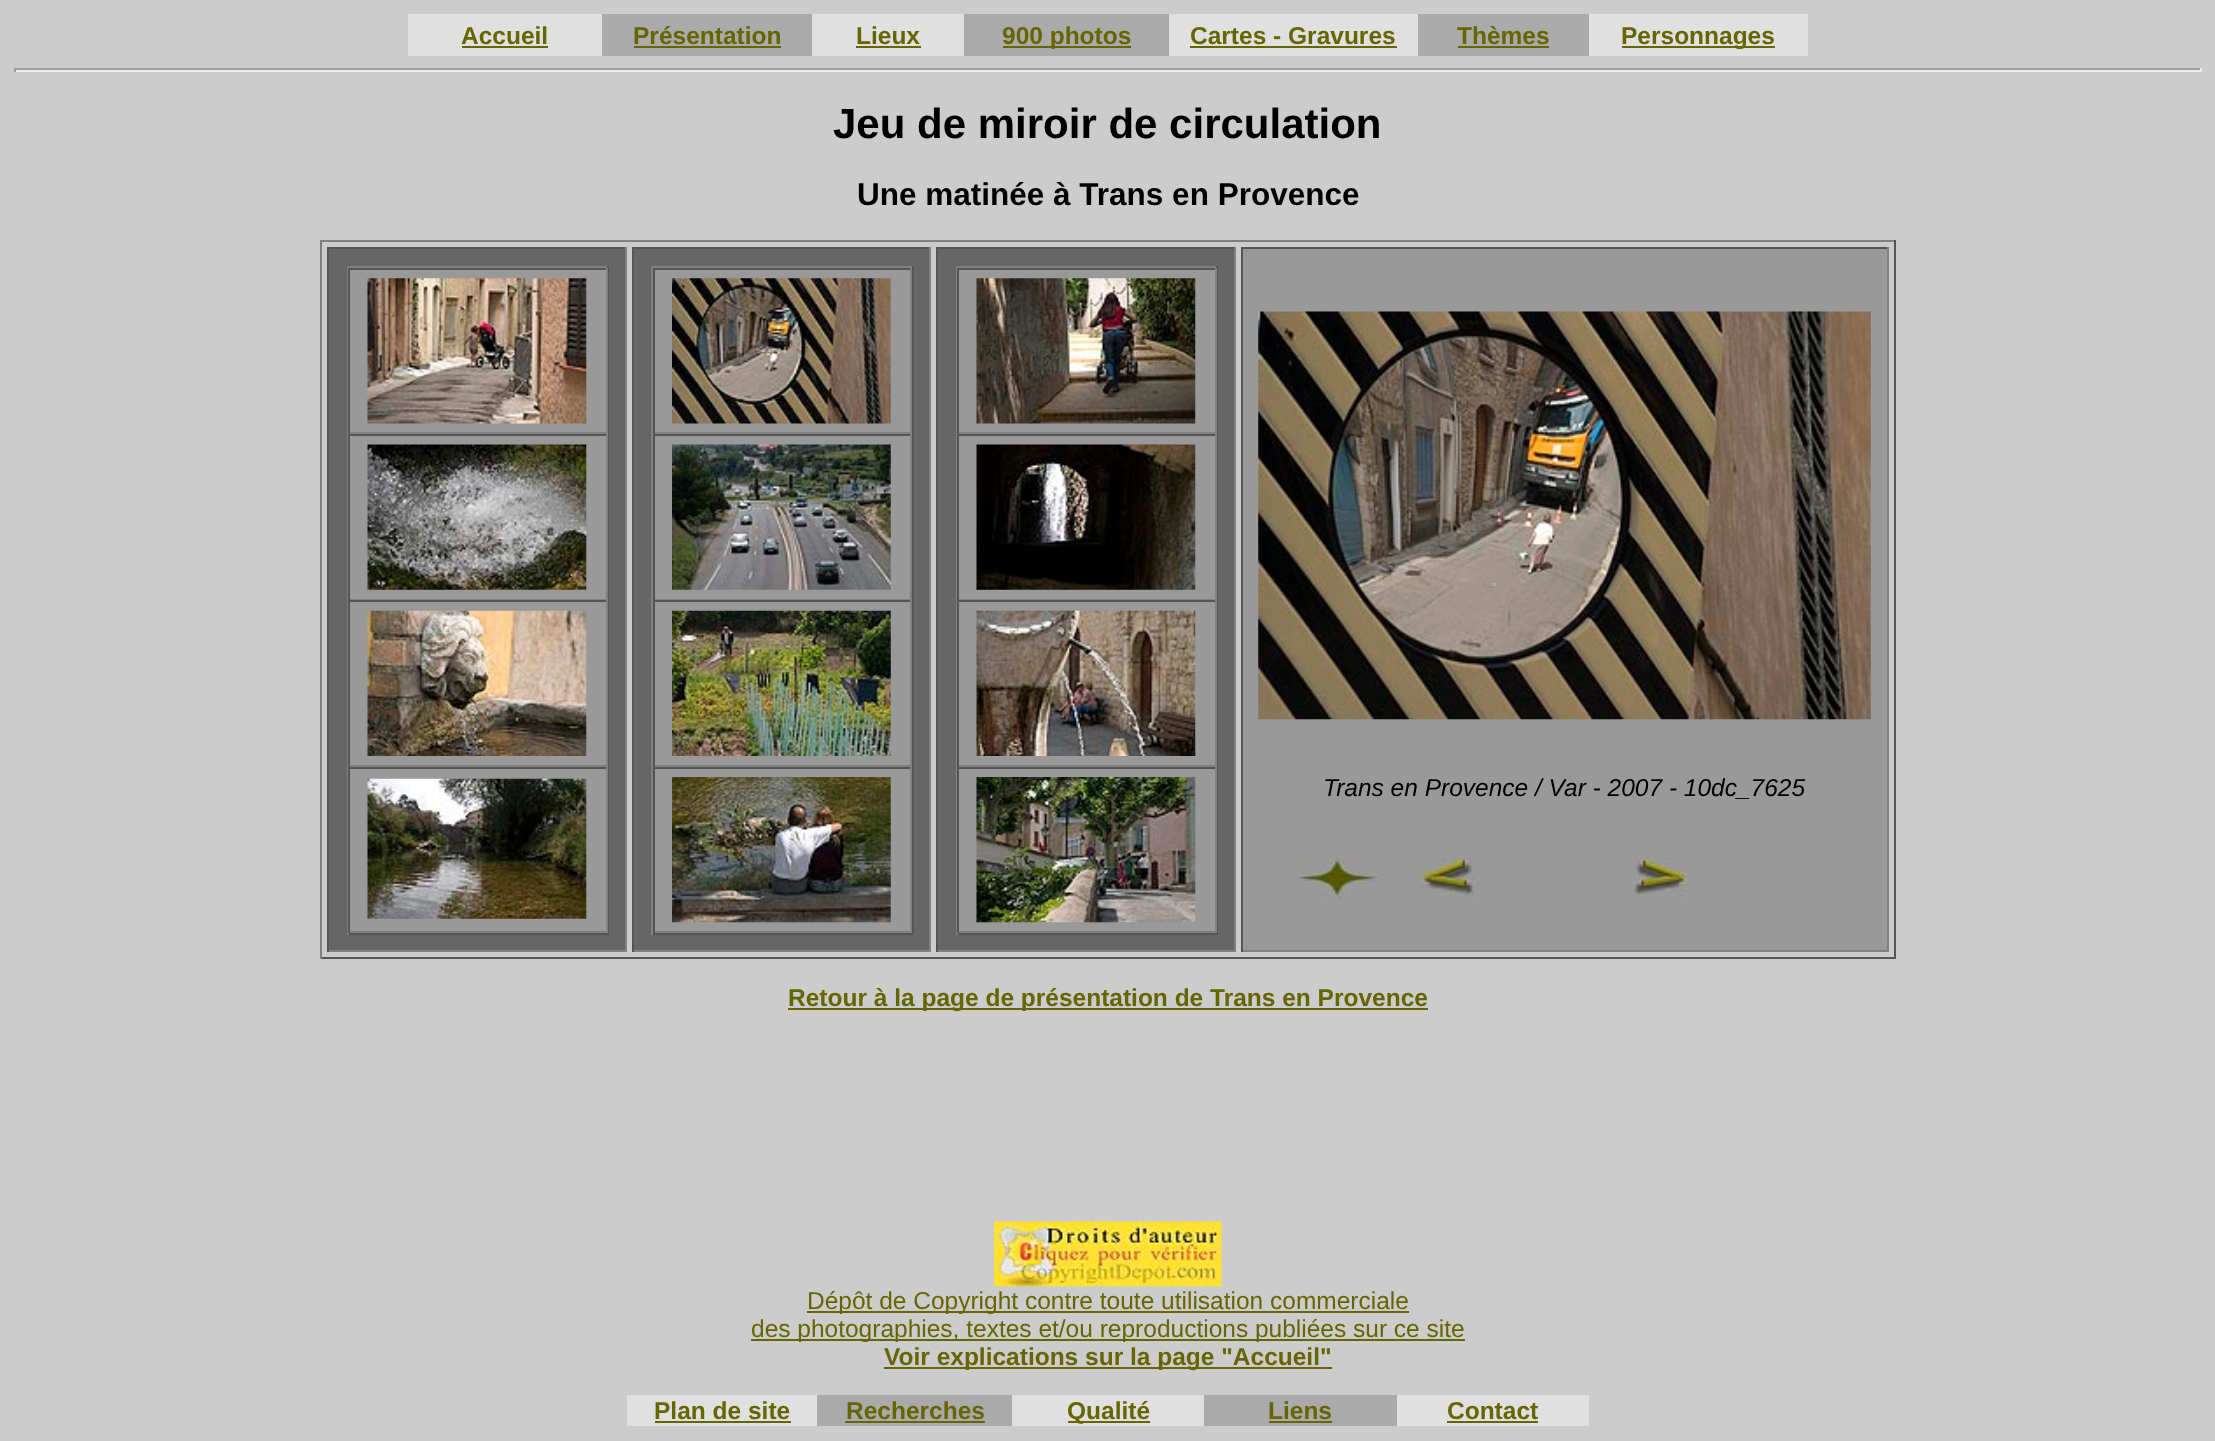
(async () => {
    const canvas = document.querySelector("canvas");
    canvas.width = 2215;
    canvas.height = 1441;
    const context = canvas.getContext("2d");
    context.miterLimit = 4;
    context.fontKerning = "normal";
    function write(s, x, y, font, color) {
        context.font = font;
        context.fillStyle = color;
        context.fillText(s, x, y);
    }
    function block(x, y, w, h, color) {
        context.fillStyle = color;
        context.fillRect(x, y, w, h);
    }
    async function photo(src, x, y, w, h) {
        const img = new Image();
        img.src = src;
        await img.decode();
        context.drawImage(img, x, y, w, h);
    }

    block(0, 0, 2215, 1441, "rgb(204, 204, 204)");
    block(408, 14, 194, 42, "rgb(224, 224, 224)");
    write("Accueil", 461, 44, "bold 24.5px Liberation Sans", "rgb(102, 102, 0)");
    block(462, 46, 86, 2, "rgb(102, 102, 0)");
    block(602, 14, 210, 42, "rgb(170, 170, 170)");
    write("Présentation", 633, 44, "bold 24.5px Liberation Sans", "rgb(102, 102, 0)");
    block(634, 46, 147, 2, "rgb(102, 102, 0)");
    block(812, 14, 152, 42, "rgb(224, 224, 224)");
    write("Lieux", 856, 44, "bold 24.5px Liberation Sans", "rgb(102, 102, 0)");
    block(856, 46, 65, 2, "rgb(102, 102, 0)");
    block(964, 14, 205, 42, "rgb(170, 170, 170)");
    block(1003, 46, 128, 2, "rgb(102, 102, 0)");
    write("900 photos", 1002, 44, "bold 24.5px Liberation Sans", "rgb(102, 102, 0)");
    block(1169, 14, 249, 42, "rgb(224, 224, 224)");
    write("Cartes - Gravures", 1190, 44, "bold 24.5px Liberation Sans", "rgb(102, 102, 0)");
    block(1190, 46, 207, 2, "rgb(102, 102, 0)");
    block(1418, 14, 171, 42, "rgb(170, 170, 170)");
    write("Thèmes", 1457, 44, "bold 24.5px Liberation Sans", "rgb(102, 102, 0)");
    block(1458, 46, 91, 2, "rgb(102, 102, 0)");
    block(1589, 14, 219, 42, "rgb(224, 224, 224)");
    block(1622, 46, 153, 2, "rgb(102, 102, 0)");
    write("Personnages", 1621, 44, "bold 24.5px Liberation Sans", "rgb(102, 102, 0)");
    block(14, 68, 2188, 2, "rgb(159, 159, 159)");
    block(2200, 68, 2, 4, "rgb(238, 238, 238)");
    block(14, 70, 2188, 2, "rgb(238, 238, 238)");
    block(14, 68, 2, 4, "rgb(159, 159, 159)");
    write("Jeu de miroir de circulation", 833, 138, "bold 42px Liberation Sans", "rgb(0, 0, 0)");
    write("Une matinée à Trans en Provence", 857, 205, "bold 31.5px Liberation Sans", "rgb(0, 0, 0)");
    block(320, 240, 1575, 2, "rgb(128, 128, 128)");
    block(1894, 240, 2, 719, "rgb(85, 85, 85)");
    block(320, 957, 1575, 2, "rgb(85, 85, 85)");
    block(320, 240, 2, 719, "rgb(128, 128, 128)");
    block(329, 249, 296, 701, "rgb(102, 102, 102)");
    block(327, 247, 300, 2, "rgb(85, 85, 85)");
    block(625, 247, 2, 705, "rgb(128, 128, 128)");
    block(327, 950, 300, 2, "rgb(128, 128, 128)");
    block(327, 247, 2, 705, "rgb(85, 85, 85)");
    block(347, 266, 262, 2, "rgb(128, 128, 128)");
    block(607, 266, 2, 669, "rgb(85, 85, 85)");
    block(347, 933, 262, 2, "rgb(85, 85, 85)");
    block(347, 266, 2, 669, "rgb(128, 128, 128)");
    block(350, 270, 256, 162, "rgb(153, 153, 153)");
    block(348, 268, 259, 2, "rgb(85, 85, 85)");
    block(606, 268, 2, 166, "rgb(128, 128, 128)");
    block(348, 432, 259, 2, "rgb(128, 128, 128)");
    block(348, 268, 2, 166, "rgb(85, 85, 85)");
    await photo("media/1.png", 367, 278, 220, 146);
    block(350, 436, 256, 163, "rgb(153, 153, 153)");
    block(348, 434, 259, 2, "rgb(85, 85, 85)");
    block(606, 434, 2, 166, "rgb(128, 128, 128)");
    block(348, 599, 259, 1, "rgb(128, 128, 128)");
    block(348, 434, 2, 166, "rgb(85, 85, 85)");
    await photo("media/2.png", 367, 444, 220, 146);
    block(350, 602, 256, 163, "rgb(153, 153, 153)");
    block(348, 600, 259, 2, "rgb(85, 85, 85)");
    block(606, 600, 2, 167, "rgb(128, 128, 128)");
    block(348, 765, 259, 2, "rgb(128, 128, 128)");
    block(348, 600, 2, 167, "rgb(85, 85, 85)");
    await photo("media/3.png", 367, 610, 220, 146);
    block(350, 769, 256, 162, "rgb(153, 153, 153)");
    block(348, 767, 259, 2, "rgb(85, 85, 85)");
    block(606, 767, 2, 166, "rgb(128, 128, 128)");
    block(348, 931, 259, 2, "rgb(128, 128, 128)");
    block(348, 767, 2, 166, "rgb(85, 85, 85)");
    await photo("media/4.png", 367, 778, 220, 141);
    block(634, 249, 295, 701, "rgb(102, 102, 102)");
    block(632, 247, 299, 2, "rgb(85, 85, 85)");
    block(929, 247, 2, 705, "rgb(128, 128, 128)");
    block(632, 950, 299, 2, "rgb(128, 128, 128)");
    block(632, 247, 2, 705, "rgb(85, 85, 85)");
    block(651, 266, 263, 2, "rgb(128, 128, 128)");
    block(912, 266, 2, 669, "rgb(85, 85, 85)");
    block(651, 933, 263, 2, "rgb(85, 85, 85)");
    block(651, 266, 2, 669, "rgb(128, 128, 128)");
    block(655, 270, 255, 162, "rgb(153, 153, 153)");
    block(653, 268, 259, 2, "rgb(85, 85, 85)");
    block(910, 268, 2, 166, "rgb(128, 128, 128)");
    block(653, 432, 259, 2, "rgb(128, 128, 128)");
    block(653, 268, 2, 166, "rgb(85, 85, 85)");
    await photo("media/5.png", 672, 278, 219, 146);
    block(655, 436, 255, 163, "rgb(153, 153, 153)");
    block(653, 434, 259, 2, "rgb(85, 85, 85)");
    block(910, 434, 2, 166, "rgb(128, 128, 128)");
    block(653, 599, 259, 1, "rgb(128, 128, 128)");
    block(653, 434, 2, 166, "rgb(85, 85, 85)");
    await photo("media/6.png", 672, 444, 219, 146);
    block(655, 602, 255, 163, "rgb(153, 153, 153)");
    block(653, 600, 259, 2, "rgb(85, 85, 85)");
    block(910, 600, 2, 167, "rgb(128, 128, 128)");
    block(653, 765, 259, 2, "rgb(128, 128, 128)");
    block(653, 600, 2, 167, "rgb(85, 85, 85)");
    await photo("media/7.png", 672, 610, 219, 146);
    block(655, 769, 255, 162, "rgb(153, 153, 153)");
    block(653, 767, 259, 2, "rgb(85, 85, 85)");
    block(910, 767, 2, 166, "rgb(128, 128, 128)");
    block(653, 931, 259, 2, "rgb(128, 128, 128)");
    block(653, 767, 2, 166, "rgb(85, 85, 85)");
    await photo("media/8.png", 672, 777, 219, 146);
    block(938, 249, 296, 701, "rgb(102, 102, 102)");
    block(936, 247, 300, 2, "rgb(85, 85, 85)");
    block(1234, 247, 2, 705, "rgb(128, 128, 128)");
    block(936, 950, 300, 2, "rgb(128, 128, 128)");
    block(936, 247, 2, 705, "rgb(85, 85, 85)");
    block(956, 266, 262, 2, "rgb(128, 128, 128)");
    block(1216, 266, 2, 669, "rgb(85, 85, 85)");
    block(956, 933, 262, 2, "rgb(85, 85, 85)");
    block(956, 266, 2, 669, "rgb(128, 128, 128)");
    block(959, 270, 256, 162, "rgb(153, 153, 153)");
    block(957, 268, 259, 2, "rgb(85, 85, 85)");
    block(1215, 268, 2, 166, "rgb(128, 128, 128)");
    block(957, 432, 259, 2, "rgb(128, 128, 128)");
    block(957, 268, 2, 166, "rgb(85, 85, 85)");
    await photo("media/9.png", 976, 278, 220, 146);
    block(959, 436, 256, 163, "rgb(153, 153, 153)");
    block(957, 434, 259, 2, "rgb(85, 85, 85)");
    block(1215, 434, 2, 166, "rgb(128, 128, 128)");
    block(957, 599, 259, 1, "rgb(128, 128, 128)");
    block(957, 434, 2, 166, "rgb(85, 85, 85)");
    await photo("media/10.png", 976, 444, 220, 146);
    block(959, 602, 256, 163, "rgb(153, 153, 153)");
    block(957, 600, 259, 2, "rgb(85, 85, 85)");
    block(1215, 600, 2, 167, "rgb(128, 128, 128)");
    block(957, 765, 259, 2, "rgb(128, 128, 128)");
    block(957, 600, 2, 167, "rgb(85, 85, 85)");
    await photo("media/11.png", 976, 610, 220, 146);
    block(959, 769, 256, 162, "rgb(153, 153, 153)");
    block(957, 767, 259, 2, "rgb(85, 85, 85)");
    block(1215, 767, 2, 166, "rgb(128, 128, 128)");
    block(957, 931, 259, 2, "rgb(128, 128, 128)");
    block(957, 767, 2, 166, "rgb(85, 85, 85)");
    await photo("media/12.png", 976, 777, 220, 146);
    block(1243, 249, 644, 701, "rgb(153, 153, 153)");
    block(1241, 247, 647, 2, "rgb(85, 85, 85)");
    block(1887, 247, 2, 705, "rgb(128, 128, 128)");
    block(1241, 950, 647, 2, "rgb(128, 128, 128)");
    block(1241, 247, 2, 705, "rgb(85, 85, 85)");
    await photo("media/13.png", 1258, 311, 613, 409);
    write("Trans en Provence / Var - 2007 - 10dc_7625", 1323, 796, "italic 24.5px Liberation Sans", "rgb(0, 0, 0)");
    await photo("media/14.png", 1293, 857, 85, 41);
    await photo("media/15.png", 1421, 857, 54, 41);
    await photo("media/16.png", 1633, 857, 54, 41);
    block(788, 1008, 640, 2, "rgb(102, 102, 0)");
    write("Retour à la page de présentation de Trans en Provence", 788, 1006, "bold 24.5px Liberation Sans", "rgb(102, 102, 0)");
    await photo("media/17.png", 994, 1221, 228, 66);
    block(807, 1311, 602, 2, "rgb(102, 102, 0)");
    write("Dépôt de Copyright contre toute utilisation commerciale", 807, 1309, "24.5px Liberation Sans", "rgb(102, 102, 0)");
    block(751, 1339, 714, 2, "rgb(102, 102, 0)");
    write("des photographies, textes et/ou reproductions publiées sur ce site", 751, 1337, "24.5px Liberation Sans", "rgb(102, 102, 0)");
    block(884, 1367, 448, 2, "rgb(102, 102, 0)");
    write("Voir explications sur la page \"Accueil\"", 884, 1365, "bold 24.5px Liberation Sans", "rgb(102, 102, 0)");
    block(627, 1395, 190, 31, "rgb(224, 224, 224)");
    write("Plan de site", 654, 1419, "bold 24.5px Liberation Sans", "rgb(102, 102, 0)");
    block(655, 1421, 136, 2, "rgb(102, 102, 0)");
    block(817, 1395, 195, 31, "rgb(170, 170, 170)");
    write("Recherches", 846, 1419, "bold 24.5px Liberation Sans", "rgb(102, 102, 0)");
    block(845, 1421, 140, 2, "rgb(102, 102, 0)");
    block(1012, 1395, 192, 31, "rgb(224, 224, 224)");
    block(1068, 1421, 82, 2, "rgb(102, 102, 0)");
    write("Qualité", 1067, 1419, "bold 24.5px Liberation Sans", "rgb(102, 102, 0)");
    block(1204, 1395, 193, 31, "rgb(170, 170, 170)");
    write("Liens", 1268, 1419, "bold 24.5px Liberation Sans", "rgb(102, 102, 0)");
    block(1269, 1421, 63, 2, "rgb(102, 102, 0)");
    block(1397, 1395, 192, 31, "rgb(224, 224, 224)");
    write("Contact", 1447, 1419, "bold 24.5px Liberation Sans", "rgb(102, 102, 0)");
    block(1447, 1421, 91, 2, "rgb(102, 102, 0)");
})();
